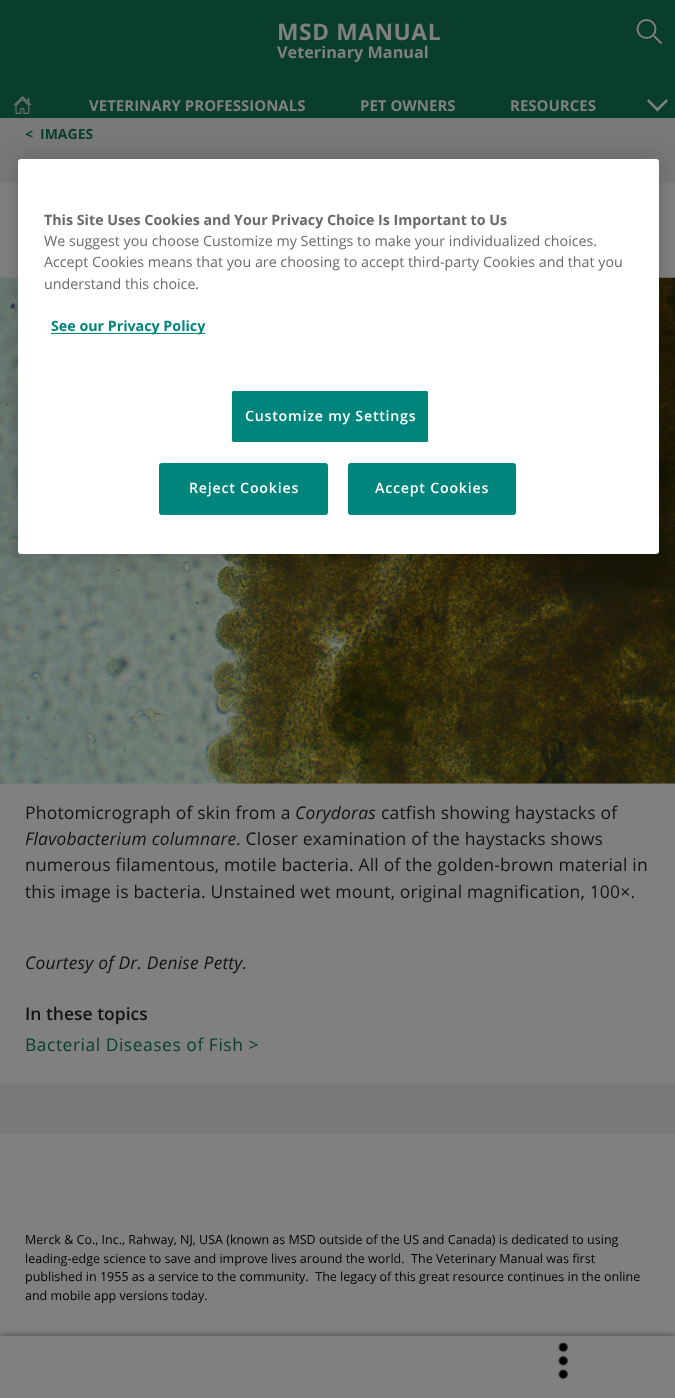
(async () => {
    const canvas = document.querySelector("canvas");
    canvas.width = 675;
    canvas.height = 1398;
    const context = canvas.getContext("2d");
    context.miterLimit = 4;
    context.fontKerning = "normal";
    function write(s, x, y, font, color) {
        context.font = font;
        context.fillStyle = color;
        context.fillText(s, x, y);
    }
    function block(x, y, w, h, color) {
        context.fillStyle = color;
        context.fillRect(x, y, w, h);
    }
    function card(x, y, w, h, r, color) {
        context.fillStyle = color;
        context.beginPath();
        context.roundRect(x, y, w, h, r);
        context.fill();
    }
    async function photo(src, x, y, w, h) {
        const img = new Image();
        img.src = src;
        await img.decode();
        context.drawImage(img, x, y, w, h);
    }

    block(0, 0, 675, 1398, "rgb(121, 121, 121)");
    block(0, 0, 675, 118, "rgb(8, 62, 42)");
    context.letterSpacing = "0.6px";
    write("MSD MANUAL", 277, 40, "bold 22.75px Open Sans", "rgb(128, 128, 128)");
    context.letterSpacing = "0px";
    write("Veterinary Manual", 277, 58, "bold 16.25px Open Sans", "rgb(128, 128, 128)");
    context.beginPath();
    context.arc(646.5, 29, 9, 0, Math.PI * 2);
    context.strokeStyle = "rgb(128, 128, 128)";
    context.lineWidth = 2;
    context.stroke();
    context.beginPath();
    context.moveTo(661.5, 43.5);
    context.lineTo(654, 36);
    context.stroke();
    await photo("media/1.png", 13, 96, 19, 18);
    write("VETERINARY PROFESSIONALS", 89, 111, "bold 15px Open Sans", "rgb(128, 128, 128)");
    write("PET OWNERS", 360, 111, "bold 15px Open Sans", "rgb(128, 128, 128)");
    write("RESOURCES", 510, 111, "bold 15px Open Sans", "rgb(128, 128, 128)");
    context.beginPath();
    context.moveTo(666.5, 99);
    context.lineTo(668, 101);
    context.lineTo(657.5, 111.5);
    context.lineTo(655.5, 109.5);
    context.closePath();
    context.fill();
    context.beginPath();
    context.moveTo(648.5, 99);
    context.lineTo(659, 109.5);
    context.lineTo(657.5, 111.5);
    context.lineTo(647, 101);
    context.closePath();
    context.fill();
    write("<", 25, 139, "bold 14px Open Sans", "rgb(8, 62, 42)");
    write("IMAGES", 40, 139, "bold 14px Open Sans", "rgb(8, 62, 42)");
    block(0, 183, 675, 901, "rgb(128, 128, 128)");
    await photo("media/2.png", 0, 277, 675, 507);
    context.letterSpacing = "0.18px";
    write("Photomicrograph of skin from a", 25, 819, "17.5px Open Sans", "rgb(17, 19, 21)");
    write("Corydoras", 295, 819, "italic 17.5px Open Sans", "rgb(17, 19, 21)");
    write("catfish showing haystacks of", 381, 819, "17.5px Open Sans", "rgb(17, 19, 21)");
    write("Flavobacterium columnare", 25, 845, "italic 17.5px Open Sans", "rgb(17, 19, 21)");
    write(". Closer examination of the haystacks shows", 236, 845, "17.5px Open Sans", "rgb(17, 19, 21)");
    write("numerous filamentous, motile bacteria. All of the golden-brown material in", 25, 871, "17.5px Open Sans", "rgb(17, 19, 21)");
    write("this image is bacteria. Unstained wet mount, original magnification, 100×.", 25, 898, "17.5px Open Sans", "rgb(17, 19, 21)");
    write("Courtesy of Dr. Denise Petty.", 25, 969, "italic 17.5px Open Sans", "rgb(17, 19, 21)");
    context.letterSpacing = "0px";
    write("In these topics", 25, 1020, "600 17.5px Open Sans", "rgb(17, 19, 21)");
    context.letterSpacing = "0.5px";
    write("Bacterial Diseases of Fish >", 25, 1051, "17.5px Open Sans", "rgb(8, 62, 42)");
    block(0, 1134, 675, 202, "rgb(128, 128, 128)");
    context.letterSpacing = "0px";
    write("Merck & Co., Inc., Rahway, NJ, USA (known as MSD outside of the US and Canada) is dedicated to using", 25, 1244, "12.5px Open Sans", "rgb(0, 0, 0)");
    write("leading-edge science to save and improve lives around the world.  The Veterinary Manual was first", 25, 1263, "12.5px Open Sans", "rgb(0, 0, 0)");
    write("published in 1955 as a service to the community.  The legacy of this great resource continues in the online", 25, 1281, "12.5px Open Sans", "rgb(0, 0, 0)");
    write("and mobile app versions today.", 25, 1300, "12.5px Open Sans", "rgb(0, 0, 0)");
    context.fillStyle = "rgba(0, 0, 0, 0.5)";
    context.filter = "blur(3px)";
    context.beginPath();
    context.rect(0, 1336, 675, 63);
    context.fill();
    context.filter = "none";
    block(0, 1336, 675, 62, "rgb(128, 128, 128)");
    await photo("media/3.png", 558, 1342, 11, 38);
    context.fillStyle = "rgba(0, 0, 0, 0.2)";
    context.filter = "blur(11px)";
    context.beginPath();
    context.roundRect(18, 159, 641, 395, 3);
    context.fill();
    context.filter = "none";
    card(18, 159, 641, 395, 3, "rgb(255, 255, 255)");
    write("This Site Uses Cookies and Your Privacy Choice Is Important to Us", 44, 225, "bold 14.25px Open Sans", "rgb(105, 105, 105)");
    write("We suggest you choose Customize my Settings to make your individualized choices.", 44, 246, "14.25px Open Sans", "rgb(105, 105, 105)");
    write("Accept Cookies means that you are choosing to accept third-party Cookies and that you", 44, 267, "14.25px Open Sans", "rgb(105, 105, 105)");
    write("understand this choice.", 44, 289, "14.25px Open Sans", "rgb(105, 105, 105)");
    block(51, 333, 154, 1, "rgb(0, 133, 124)");
    write("See our Privacy Policy", 51, 331, "bold 14.25px Open Sans", "rgb(0, 133, 124)");
    context.beginPath();
    context.roundRect(231.5, 390.5, 197, 52, 2);
    context.fill();
    context.strokeStyle = "rgb(255, 255, 255)";
    context.lineWidth = 1;
    context.stroke();
    context.letterSpacing = "0.75px";
    write("Customize my Settings", 245, 421, "600 14.25px Open Sans", "rgb(255, 255, 255)");
    context.fillStyle = "rgb(0, 133, 124)";
    context.beginPath();
    context.roundRect(159.5, 463.5, 168, 51, 2);
    context.fill();
    context.strokeStyle = "rgb(0, 133, 124)";
    context.stroke();
    write("Reject Cookies", 189, 493, "600 14.25px Open Sans", "rgb(255, 255, 255)");
    context.fillStyle = "rgb(0, 133, 124)";
    context.beginPath();
    context.roundRect(348.5, 463.5, 167, 51, 2);
    context.fill();
    context.stroke();
    write("Accept Cookies", 375, 493, "600 14.25px Open Sans", "rgb(255, 255, 255)");
})();
